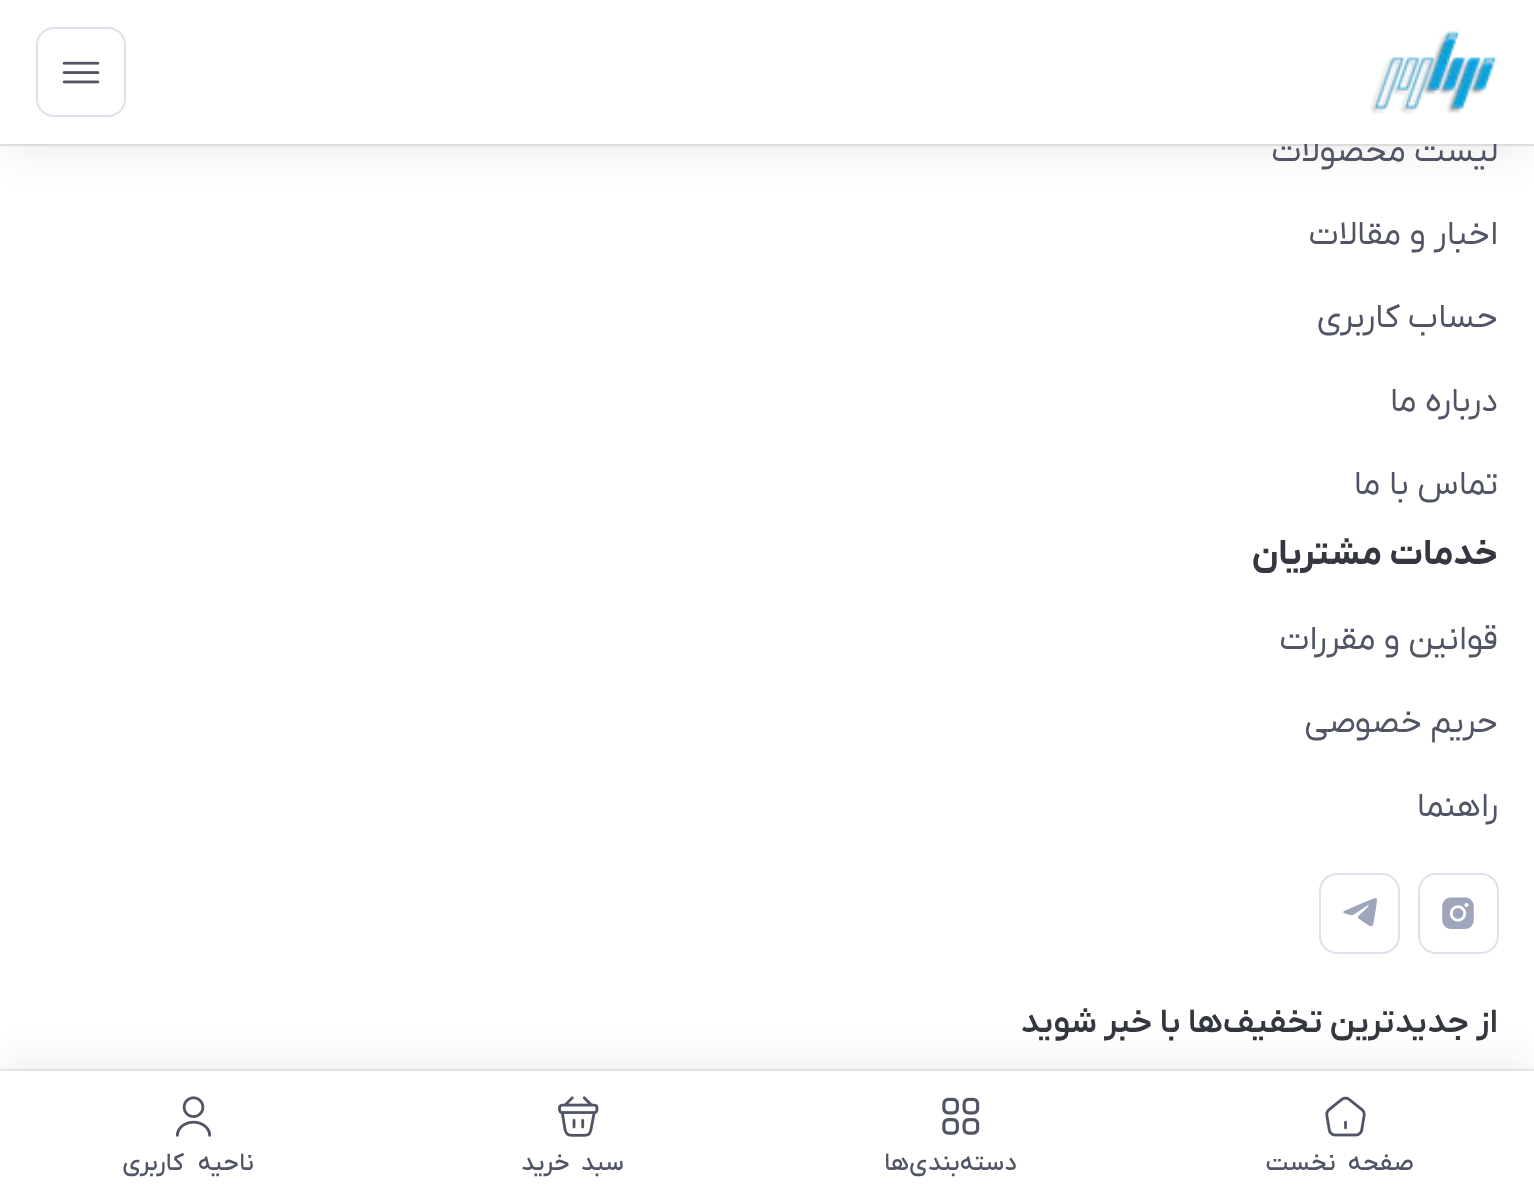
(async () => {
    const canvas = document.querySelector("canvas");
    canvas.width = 1534;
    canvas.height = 1194;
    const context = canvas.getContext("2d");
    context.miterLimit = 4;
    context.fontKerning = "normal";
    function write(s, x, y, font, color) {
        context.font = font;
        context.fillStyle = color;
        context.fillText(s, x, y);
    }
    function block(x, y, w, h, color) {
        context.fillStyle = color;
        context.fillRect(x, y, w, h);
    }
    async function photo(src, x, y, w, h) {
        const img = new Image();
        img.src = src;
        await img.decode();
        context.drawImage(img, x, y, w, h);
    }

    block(0, 0, 1534, 1194, "rgb(255, 255, 255)");
    context.fillStyle = "rgba(24, 25, 29, 0.1)";
    context.beginPath();
    context.moveTo(0, 144);
    context.lineTo(0, 146);
    context.lineTo(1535, 146);
    context.lineTo(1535, 2);
    context.lineTo(1534, 2);
    context.lineTo(1534, 144);
    context.closePath();
    context.fill();
    context.fillStyle = "rgba(24, 25, 29, 0.12)";
    context.filter = "blur(22.5px)";
    context.beginPath();
    context.rect(0, 0, 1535, 144);
    context.fill();
    context.filter = "none";
    context.direction = "rtl";
    write("لیست محصولات", 1498, 161, "33.75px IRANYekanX", "rgb(80, 84, 100)");
    block(0, 0, 1534, 144, "rgb(255, 255, 255)");
    await photo("media/1.png", 1370, 30, 127, 84);
    context.beginPath();
    context.roundRect(37, 28, 88, 88, 17);
    context.strokeStyle = "rgb(223, 226, 237)";
    context.lineWidth = 2;
    context.stroke();
    await photo("media/2.png", 62, 61, 38, 23);
    write("اخبار و مقالات", 1498, 244, "33.75px IRANYekanX", "rgb(80, 84, 100)");
    write("حساب کاربری", 1498, 327, "33.75px IRANYekanX", "rgb(80, 84, 100)");
    write("درباره ما", 1498, 411, "33.75px IRANYekanX", "rgb(80, 84, 100)");
    write("تماس با ما", 1498, 494, "33.75px IRANYekanX", "rgb(80, 84, 100)");
    write("خدمات مشتریان", 1498, 564, "bold 36px IRANYekanX", "rgb(52, 55, 64)");
    write("قوانین و مقررات", 1498, 649, "33.75px IRANYekanX", "rgb(80, 84, 100)");
    write("حریم خصوصی", 1498, 732, "33.75px IRANYekanX", "rgb(80, 84, 100)");
    write("راهنما", 1498, 816, "33.75px IRANYekanX", "rgb(80, 84, 100)");
    context.beginPath();
    context.roundRect(1419, 874, 79, 79, 17);
    context.stroke();
    await photo("media/3.png", 1442, 897, 32, 32);
    context.beginPath();
    context.roundRect(1320, 874, 79, 79, 17);
    context.stroke();
    await photo("media/4.png", 1343, 898, 34, 29);
    write("از جدید‌ترین تخفیف‌ها با‌ خبر شوید", 1498, 1032, "600 33.75px IRANYekanX", "rgb(52, 55, 64)");
    context.strokeStyle = "rgb(237, 237, 237)";
    context.strokeRect(-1, 1070, 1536, 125);
    context.fillStyle = "rgba(24, 25, 29, 0.12)";
    context.filter = "blur(22.5px)";
    context.beginPath();
    context.rect(0, 1071, 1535, 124);
    context.fill();
    context.filter = "none";
    block(0, 1071, 1534, 123, "rgb(255, 255, 255)");
    await photo("media/5.png", 1325, 1096, 41, 41);
    context.letterSpacing = "-0.75px";
    context.wordSpacing = "7px";
    write("صفحه نخست", 1414, 1170, "500 24.75px IRANYekanX", "rgb(80, 84, 100)");
    await photo("media/6.png", 942, 1097, 38, 38);
    context.wordSpacing = "0px";
    write("دسته‌بندی‌ها", 1017, 1170, "500 24.75px IRANYekanX", "rgb(80, 84, 100)");
    await photo("media/7.png", 558, 1096, 41, 41);
    context.wordSpacing = "6px";
    write("سبد خرید", 624, 1170, "500 24.75px IRANYekanX", "rgb(80, 84, 100)");
    await photo("media/8.png", 176, 1096, 35, 41);
    context.wordSpacing = "9px";
    write("ناحیه کاربری", 254, 1170, "500 24.75px IRANYekanX", "rgb(80, 84, 100)");
})();
